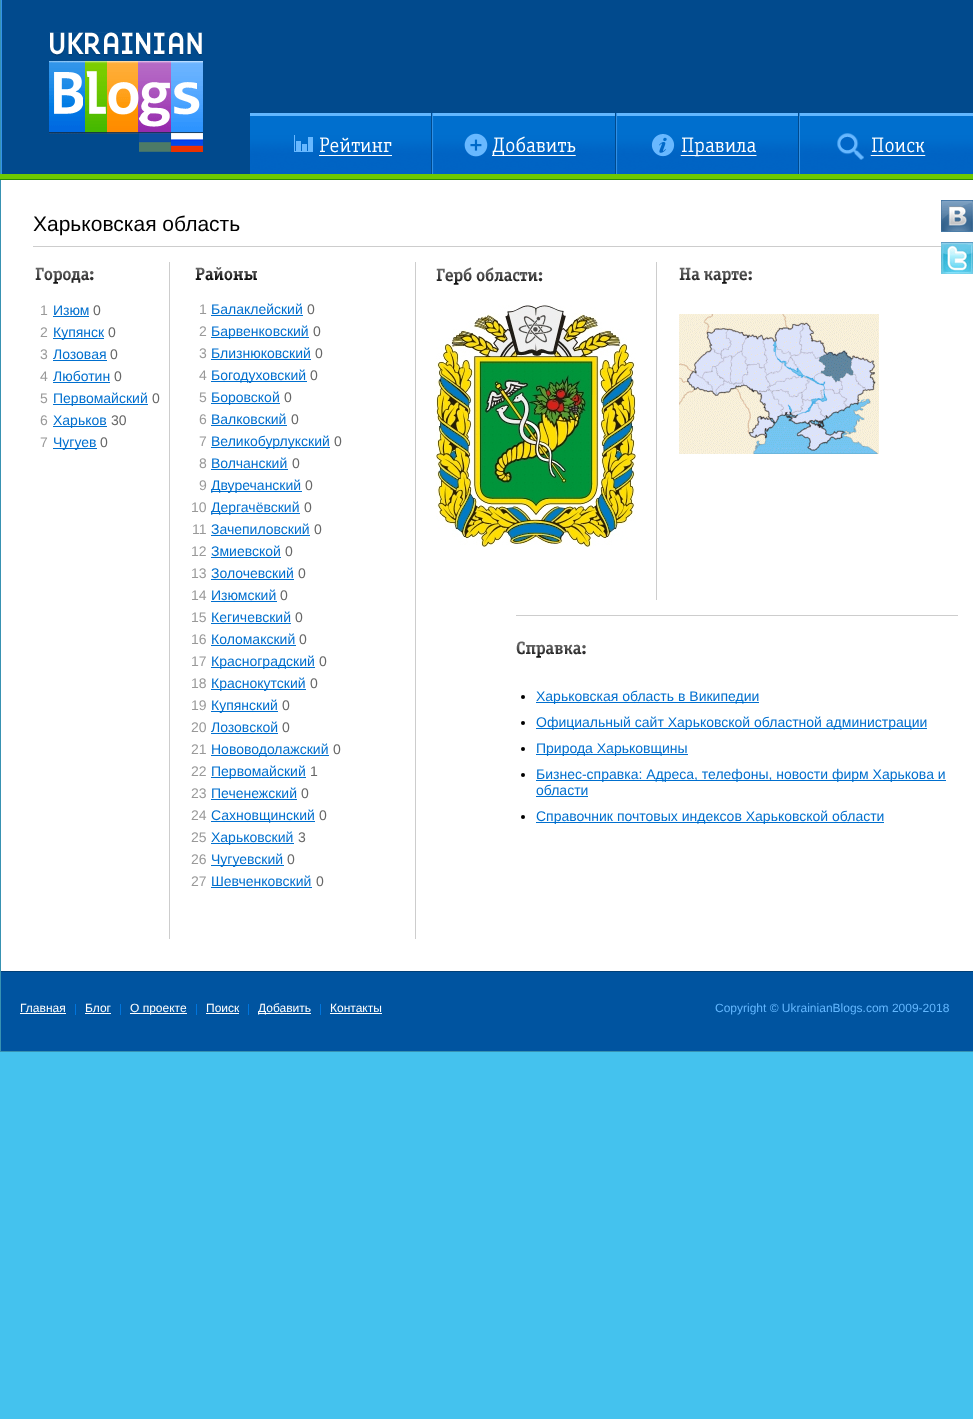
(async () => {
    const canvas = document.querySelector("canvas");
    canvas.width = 973;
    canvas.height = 1419;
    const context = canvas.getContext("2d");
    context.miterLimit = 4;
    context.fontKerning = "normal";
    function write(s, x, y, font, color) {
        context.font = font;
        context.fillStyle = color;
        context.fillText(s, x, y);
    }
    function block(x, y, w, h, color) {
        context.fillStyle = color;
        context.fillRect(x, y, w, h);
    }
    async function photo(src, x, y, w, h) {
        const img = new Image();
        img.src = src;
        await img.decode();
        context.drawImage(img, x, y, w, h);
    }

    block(0, 0, 973, 1419, "rgb(68, 194, 238)");
    block(0, 1051, 973, 1, "rgb(56, 146, 178)");
    block(0, 0, 1, 1052, "rgb(56, 146, 178)");
    block(2, 0, 971, 174, "rgb(1, 74, 141)");
    block(1, 0, 1, 180, "rgb(50, 146, 232)");
    await photo("media/1.png", 49, 32, 154, 102);
    await photo("media/2.png", 139, 133, 32, 19);
    await photo("media/3.png", 171, 133, 32, 19);
    await photo("media/4.png", 250, 113, 181, 61);
    await photo("media/5.png", 432, 113, 183, 61);
    await photo("media/6.png", 616, 113, 182, 61);
    await photo("media/7.png", 799, 113, 174, 61);
    block(0, 174, 973, 5, "rgb(110, 201, 2)");
    block(0, 179, 973, 1, "rgb(45, 139, 3)");
    block(1, 180, 972, 791, "rgb(255, 255, 255)");
    write("Харьковская область", 33, 231, "21px Liberation Sans", "rgb(0, 0, 0)");
    block(33, 246, 908, 1, "rgb(205, 205, 205)");
    await photo("media/8.png", 35, 267, 59, 17);
    write("1", 40, 315, "14px Liberation Sans", "rgb(153, 153, 153)");
    write("Изюм", 53, 315, "14px Liberation Sans", "rgb(0, 111, 206)");
    block(53, 316, 36, 1, "rgb(0, 111, 206)");
    write("0", 93, 315, "14px Liberation Sans", "rgb(102, 102, 102)");
    write("2", 40, 337, "14px Liberation Sans", "rgb(153, 153, 153)");
    block(53, 338, 51, 1, "rgb(0, 111, 206)");
    write("Купянск", 53, 337, "14px Liberation Sans", "rgb(0, 111, 206)");
    write("0", 108, 337, "14px Liberation Sans", "rgb(102, 102, 102)");
    write("3", 40, 359, "14px Liberation Sans", "rgb(153, 153, 153)");
    write("Лозовая", 53, 359, "14px Liberation Sans", "rgb(0, 111, 206)");
    block(53, 360, 54, 1, "rgb(0, 111, 206)");
    write("0", 110, 359, "14px Liberation Sans", "rgb(102, 102, 102)");
    write("4", 40, 381, "14px Liberation Sans", "rgb(153, 153, 153)");
    write("Люботин", 53, 381, "14px Liberation Sans", "rgb(0, 111, 206)");
    block(53, 382, 57, 1, "rgb(0, 111, 206)");
    write("0", 114, 381, "14px Liberation Sans", "rgb(102, 102, 102)");
    write("5", 40, 403, "14px Liberation Sans", "rgb(153, 153, 153)");
    block(53, 404, 95, 1, "rgb(0, 111, 206)");
    write("Первомайский", 53, 403, "14px Liberation Sans", "rgb(0, 111, 206)");
    write("0", 152, 403, "14px Liberation Sans", "rgb(102, 102, 102)");
    write("6", 40, 425, "14px Liberation Sans", "rgb(153, 153, 153)");
    block(53, 426, 54, 1, "rgb(0, 111, 206)");
    write("Харьков", 53, 425, "14px Liberation Sans", "rgb(0, 111, 206)");
    write("30", 111, 425, "14px Liberation Sans", "rgb(102, 102, 102)");
    write("7", 40, 447, "14px Liberation Sans", "rgb(153, 153, 153)");
    block(53, 448, 44, 1, "rgb(0, 111, 206)");
    write("Чугуев", 53, 447, "14px Liberation Sans", "rgb(0, 111, 206)");
    write("0", 100, 447, "14px Liberation Sans", "rgb(102, 102, 102)");
    block(415, 262, 1, 677, "rgb(205, 205, 205)");
    block(169, 262, 1, 677, "rgb(205, 205, 205)");
    await photo("media/9.png", 195, 267, 62, 14);
    write("1", 199, 314, "14px Liberation Sans", "rgb(153, 153, 153)");
    write("Балаклейский", 211, 314, "14px Liberation Sans", "rgb(0, 111, 206)");
    block(211, 315, 92, 1, "rgb(0, 111, 206)");
    write("0", 307, 314, "14px Liberation Sans", "rgb(102, 102, 102)");
    write("2", 199, 336, "14px Liberation Sans", "rgb(153, 153, 153)");
    block(211, 337, 98, 1, "rgb(0, 111, 206)");
    write("Барвенковский", 211, 336, "14px Liberation Sans", "rgb(0, 111, 206)");
    write("0", 313, 336, "14px Liberation Sans", "rgb(102, 102, 102)");
    write("3", 199, 358, "14px Liberation Sans", "rgb(153, 153, 153)");
    write("Близнюковский", 211, 358, "14px Liberation Sans", "rgb(0, 111, 206)");
    block(211, 359, 100, 1, "rgb(0, 111, 206)");
    write("0", 315, 358, "14px Liberation Sans", "rgb(102, 102, 102)");
    write("4", 199, 380, "14px Liberation Sans", "rgb(153, 153, 153)");
    block(211, 381, 96, 1, "rgb(0, 111, 206)");
    write("Богодуховский", 211, 380, "14px Liberation Sans", "rgb(0, 111, 206)");
    write("0", 310, 380, "14px Liberation Sans", "rgb(102, 102, 102)");
    write("5", 199, 402, "14px Liberation Sans", "rgb(153, 153, 153)");
    block(211, 403, 69, 1, "rgb(0, 111, 206)");
    write("Боровской", 211, 402, "14px Liberation Sans", "rgb(0, 111, 206)");
    write("0", 284, 402, "14px Liberation Sans", "rgb(102, 102, 102)");
    write("6", 199, 424, "14px Liberation Sans", "rgb(153, 153, 153)");
    write("Валковский", 211, 424, "14px Liberation Sans", "rgb(0, 111, 206)");
    block(211, 425, 76, 1, "rgb(0, 111, 206)");
    write("0", 291, 424, "14px Liberation Sans", "rgb(102, 102, 102)");
    write("7", 199, 446, "14px Liberation Sans", "rgb(153, 153, 153)");
    block(211, 447, 119, 1, "rgb(0, 111, 206)");
    write("Великобурлукский", 211, 446, "14px Liberation Sans", "rgb(0, 111, 206)");
    write("0", 334, 446, "14px Liberation Sans", "rgb(102, 102, 102)");
    write("8", 199, 468, "14px Liberation Sans", "rgb(153, 153, 153)");
    write("Волчанский", 211, 468, "14px Liberation Sans", "rgb(0, 111, 206)");
    block(211, 469, 77, 1, "rgb(0, 111, 206)");
    write("0", 292, 468, "14px Liberation Sans", "rgb(102, 102, 102)");
    write("9", 199, 490, "14px Liberation Sans", "rgb(153, 153, 153)");
    block(211, 491, 91, 1, "rgb(0, 111, 206)");
    write("Двуречанский", 211, 490, "14px Liberation Sans", "rgb(0, 111, 206)");
    write("0", 305, 490, "14px Liberation Sans", "rgb(102, 102, 102)");
    write("10", 191, 512, "14px Liberation Sans", "rgb(153, 153, 153)");
    block(211, 513, 89, 1, "rgb(0, 111, 206)");
    write("Дергачёвский", 211, 512, "14px Liberation Sans", "rgb(0, 111, 206)");
    write("0", 304, 512, "14px Liberation Sans", "rgb(102, 102, 102)");
    write("11", 192, 534, "14px Liberation Sans", "rgb(153, 153, 153)");
    write("Зачепиловский", 211, 534, "14px Liberation Sans", "rgb(0, 111, 206)");
    block(211, 535, 99, 1, "rgb(0, 111, 206)");
    write("0", 314, 534, "14px Liberation Sans", "rgb(102, 102, 102)");
    write("12", 191, 556, "14px Liberation Sans", "rgb(153, 153, 153)");
    write("Змиевской", 211, 556, "14px Liberation Sans", "rgb(0, 111, 206)");
    block(211, 557, 70, 1, "rgb(0, 111, 206)");
    write("0", 285, 556, "14px Liberation Sans", "rgb(102, 102, 102)");
    write("13", 191, 578, "14px Liberation Sans", "rgb(153, 153, 153)");
    write("Золочевский", 211, 578, "14px Liberation Sans", "rgb(0, 111, 206)");
    block(211, 579, 83, 1, "rgb(0, 111, 206)");
    write("0", 298, 578, "14px Liberation Sans", "rgb(102, 102, 102)");
    write("14", 191, 600, "14px Liberation Sans", "rgb(153, 153, 153)");
    write("Изюмский", 211, 600, "14px Liberation Sans", "rgb(0, 111, 206)");
    block(211, 601, 66, 1, "rgb(0, 111, 206)");
    write("0", 280, 600, "14px Liberation Sans", "rgb(102, 102, 102)");
    write("15", 191, 622, "14px Liberation Sans", "rgb(153, 153, 153)");
    write("Кегичевский", 211, 622, "14px Liberation Sans", "rgb(0, 111, 206)");
    block(211, 623, 80, 1, "rgb(0, 111, 206)");
    write("0", 295, 622, "14px Liberation Sans", "rgb(102, 102, 102)");
    write("16", 191, 644, "14px Liberation Sans", "rgb(153, 153, 153)");
    write("Коломакский", 211, 644, "14px Liberation Sans", "rgb(0, 111, 206)");
    block(211, 645, 85, 1, "rgb(0, 111, 206)");
    write("0", 299, 644, "14px Liberation Sans", "rgb(102, 102, 102)");
    write("17", 191, 666, "14px Liberation Sans", "rgb(153, 153, 153)");
    block(211, 667, 104, 1, "rgb(0, 111, 206)");
    write("Красноградский", 211, 666, "14px Liberation Sans", "rgb(0, 111, 206)");
    write("0", 319, 666, "14px Liberation Sans", "rgb(102, 102, 102)");
    write("18", 191, 688, "14px Liberation Sans", "rgb(153, 153, 153)");
    block(211, 689, 95, 1, "rgb(0, 111, 206)");
    write("Краснокутский", 211, 688, "14px Liberation Sans", "rgb(0, 111, 206)");
    write("0", 310, 688, "14px Liberation Sans", "rgb(102, 102, 102)");
    write("19", 191, 710, "14px Liberation Sans", "rgb(153, 153, 153)");
    block(211, 711, 67, 1, "rgb(0, 111, 206)");
    write("Купянский", 211, 710, "14px Liberation Sans", "rgb(0, 111, 206)");
    write("0", 282, 710, "14px Liberation Sans", "rgb(102, 102, 102)");
    write("20", 191, 732, "14px Liberation Sans", "rgb(153, 153, 153)");
    write("Лозовской", 211, 732, "14px Liberation Sans", "rgb(0, 111, 206)");
    block(211, 733, 67, 1, "rgb(0, 111, 206)");
    write("0", 282, 732, "14px Liberation Sans", "rgb(102, 102, 102)");
    write("21", 191, 754, "14px Liberation Sans", "rgb(153, 153, 153)");
    block(211, 755, 118, 1, "rgb(0, 111, 206)");
    write("Нововодолажский", 211, 754, "14px Liberation Sans", "rgb(0, 111, 206)");
    write("0", 333, 754, "14px Liberation Sans", "rgb(102, 102, 102)");
    write("22", 191, 776, "14px Liberation Sans", "rgb(153, 153, 153)");
    block(211, 777, 95, 1, "rgb(0, 111, 206)");
    write("Первомайский", 211, 776, "14px Liberation Sans", "rgb(0, 111, 206)");
    write("1", 310, 776, "14px Liberation Sans", "rgb(102, 102, 102)");
    write("23", 191, 798, "14px Liberation Sans", "rgb(153, 153, 153)");
    write("Печенежский", 211, 798, "14px Liberation Sans", "rgb(0, 111, 206)");
    block(211, 799, 86, 1, "rgb(0, 111, 206)");
    write("0", 301, 798, "14px Liberation Sans", "rgb(102, 102, 102)");
    write("24", 191, 820, "14px Liberation Sans", "rgb(153, 153, 153)");
    block(211, 821, 104, 1, "rgb(0, 111, 206)");
    write("Сахновщинский", 211, 820, "14px Liberation Sans", "rgb(0, 111, 206)");
    write("0", 319, 820, "14px Liberation Sans", "rgb(102, 102, 102)");
    write("25", 191, 842, "14px Liberation Sans", "rgb(153, 153, 153)");
    block(211, 843, 83, 1, "rgb(0, 111, 206)");
    write("Харьковский", 211, 842, "14px Liberation Sans", "rgb(0, 111, 206)");
    write("3", 298, 842, "14px Liberation Sans", "rgb(102, 102, 102)");
    write("26", 191, 864, "14px Liberation Sans", "rgb(153, 153, 153)");
    block(211, 865, 73, 1, "rgb(0, 111, 206)");
    write("Чугуевский", 211, 864, "14px Liberation Sans", "rgb(0, 111, 206)");
    write("0", 287, 864, "14px Liberation Sans", "rgb(102, 102, 102)");
    write("27", 191, 886, "14px Liberation Sans", "rgb(153, 153, 153)");
    write("Шевченковский", 211, 886, "14px Liberation Sans", "rgb(0, 111, 206)");
    block(211, 887, 101, 1, "rgb(0, 111, 206)");
    write("0", 316, 886, "14px Liberation Sans", "rgb(102, 102, 102)");
    block(656, 262, 1, 338, "rgb(205, 205, 205)");
    await photo("media/10.png", 436, 267, 107, 18);
    await photo("media/11.png", 436, 305, 200, 242);
    await photo("media/12.png", 679, 267, 73, 17);
    await photo("media/13.png", 679, 314, 200, 140);
    block(516, 615, 442, 1, "rgb(205, 205, 205)");
    await photo("media/14.png", 516, 641, 70, 17);
    context.fillStyle = "rgb(0, 0, 0)";
    context.beginPath();
    context.arc(523, 697, 2, 0, Math.PI * 2);
    context.fill();
    block(536, 702, 223, 1, "rgb(0, 111, 206)");
    write("Харьковская область в Википедии", 536, 701, "14px Liberation Sans", "rgb(0, 111, 206)");
    context.fillStyle = "rgb(0, 0, 0)";
    context.beginPath();
    context.arc(523, 723, 2, 0, Math.PI * 2);
    context.fill();
    block(536, 728, 391, 1, "rgb(0, 111, 206)");
    write("Официальный сайт Харьковской областной администрации", 536, 727, "14px Liberation Sans", "rgb(0, 111, 206)");
    context.fillStyle = "rgb(0, 0, 0)";
    context.beginPath();
    context.arc(523, 749, 2, 0, Math.PI * 2);
    context.fill();
    block(536, 754, 152, 1, "rgb(0, 111, 206)");
    write("Природа Харьковщины", 536, 753, "14px Liberation Sans", "rgb(0, 111, 206)");
    context.fillStyle = "rgb(0, 0, 0)";
    context.beginPath();
    context.arc(523, 775, 2, 0, Math.PI * 2);
    context.fill();
    block(536, 780, 410, 1, "rgb(0, 111, 206)");
    write("Бизнес-справка: Адреса, телефоны, новости фирм Харькова и", 536, 779, "14px Liberation Sans", "rgb(0, 111, 206)");
    write("области", 536, 795, "14px Liberation Sans", "rgb(0, 111, 206)");
    block(536, 796, 52, 1, "rgb(0, 111, 206)");
    context.fillStyle = "rgb(0, 0, 0)";
    context.beginPath();
    context.arc(523, 817, 2, 0, Math.PI * 2);
    context.fill();
    block(536, 822, 348, 1, "rgb(0, 111, 206)");
    write("Справочник почтовых индексов Харьковской области", 536, 821, "14px Liberation Sans", "rgb(0, 111, 206)");
    await photo("media/15.png", 941, 200, 32, 32);
    await photo("media/16.png", 941, 242, 32, 32);
    block(1, 972, 972, 79, "rgb(0, 84, 160)");
    block(1, 971, 972, 1, "rgb(1, 64, 119)");
    write("Главная", 20, 1012, "12px Liberation Sans", "rgb(255, 255, 255)");
    block(20, 1013, 46, 1, "rgb(255, 255, 255)");
    block(75, 1004, 1, 11, "rgb(0, 117, 221)");
    write("Блог", 85, 1012, "12px Liberation Sans", "rgb(255, 255, 255)");
    block(85, 1013, 26, 1, "rgb(255, 255, 255)");
    block(120, 1004, 1, 11, "rgb(0, 117, 221)");
    block(130, 1013, 57, 1, "rgb(255, 255, 255)");
    write("О проекте", 130, 1012, "12px Liberation Sans", "rgb(255, 255, 255)");
    block(196, 1004, 1, 11, "rgb(0, 117, 221)");
    write("Поиск", 206, 1012, "12px Liberation Sans", "rgb(255, 255, 255)");
    block(206, 1013, 33, 1, "rgb(255, 255, 255)");
    block(248, 1004, 1, 11, "rgb(0, 117, 221)");
    block(258, 1013, 53, 1, "rgb(255, 255, 255)");
    write("Добавить", 258, 1012, "12px Liberation Sans", "rgb(255, 255, 255)");
    block(320, 1004, 1, 11, "rgb(0, 117, 221)");
    write("Контакты", 330, 1012, "12px Liberation Sans", "rgb(255, 255, 255)");
    block(330, 1013, 52, 1, "rgb(255, 255, 255)");
    write("Copyright © UkrainianBlogs.com 2009-2018", 715, 1012, "12px Liberation Sans", "rgb(98, 183, 255)");
})();
